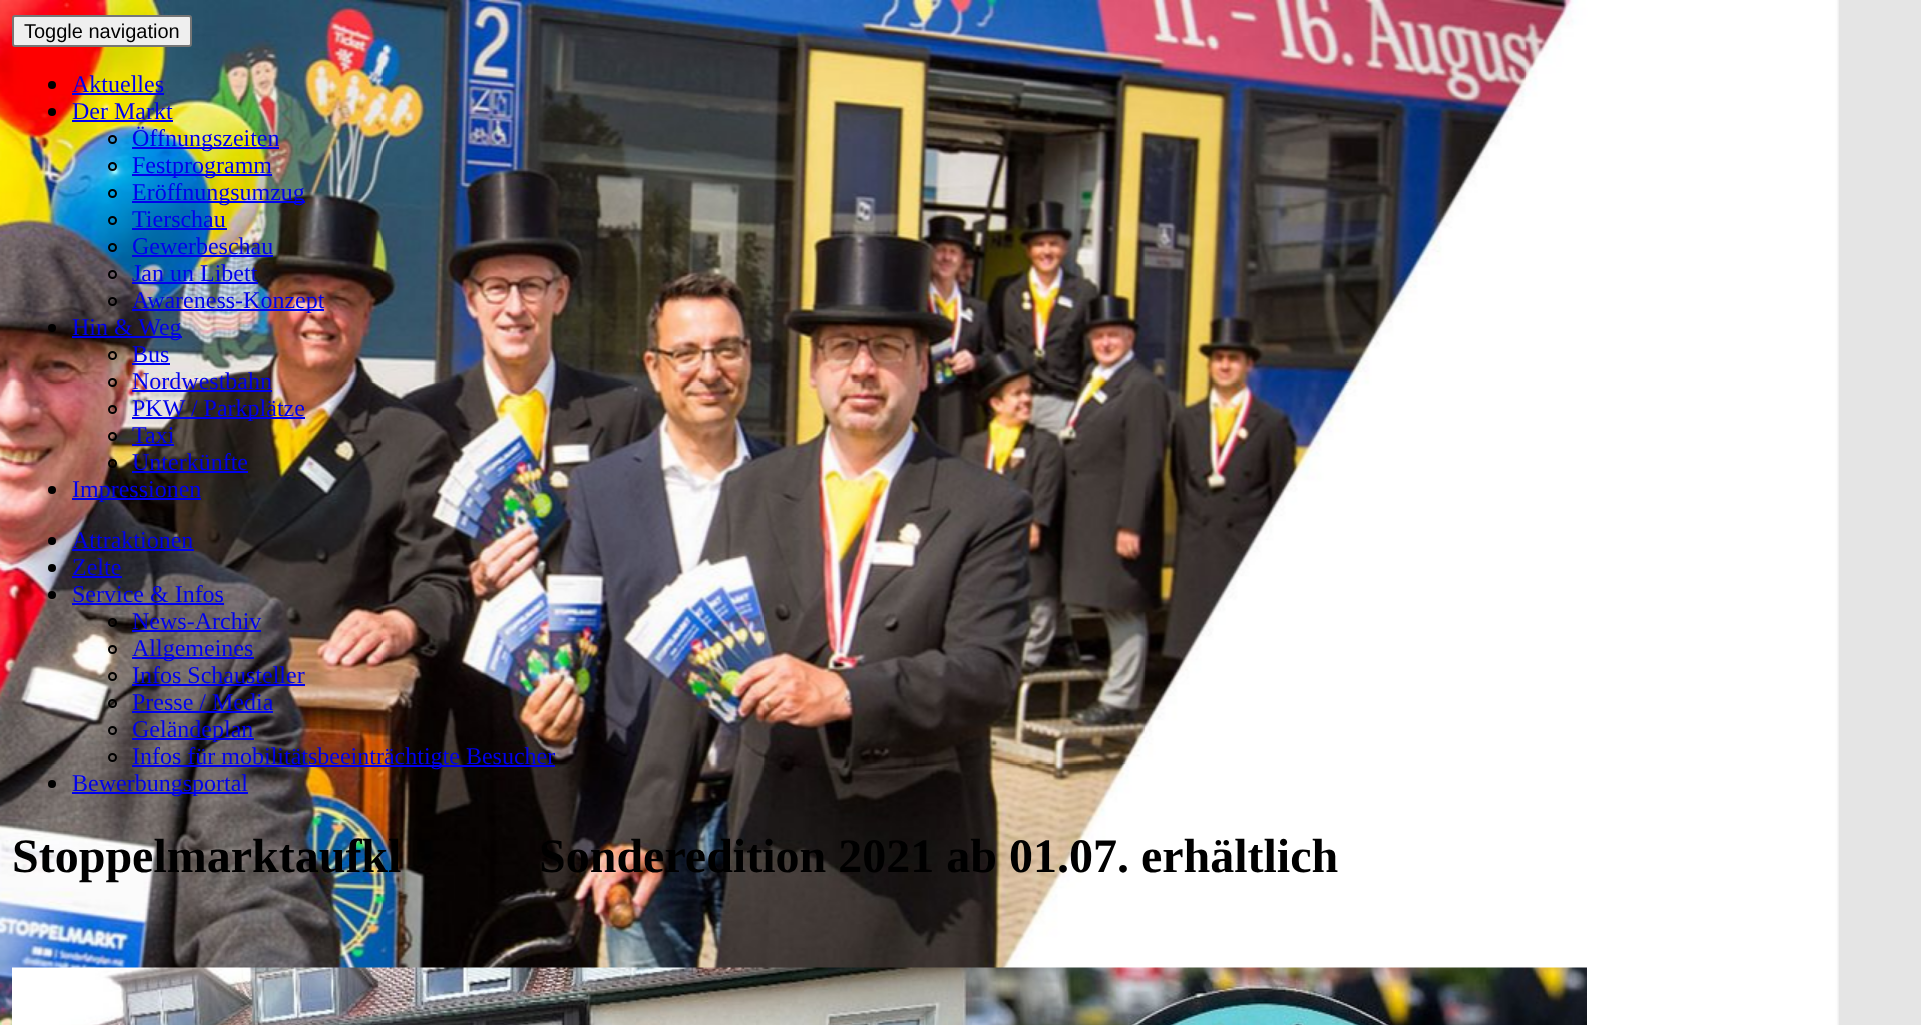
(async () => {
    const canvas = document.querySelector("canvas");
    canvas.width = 1921;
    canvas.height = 1025;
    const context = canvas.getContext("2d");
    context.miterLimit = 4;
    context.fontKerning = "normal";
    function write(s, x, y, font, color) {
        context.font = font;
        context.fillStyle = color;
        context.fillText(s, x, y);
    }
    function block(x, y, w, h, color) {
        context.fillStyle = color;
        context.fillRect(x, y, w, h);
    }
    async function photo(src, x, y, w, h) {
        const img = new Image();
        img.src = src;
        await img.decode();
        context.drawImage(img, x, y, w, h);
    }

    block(0, 0, 1921, 1025, "rgb(229, 229, 229)");
    await photo("media/1.png", 0, 0, 1839, 1025);
    context.fillStyle = "rgb(239, 239, 239)";
    context.beginPath();
    context.roundRect(13, 16, 178, 30, 2);
    context.fill();
    context.strokeStyle = "rgb(118, 118, 118)";
    context.lineWidth = 2;
    context.stroke();
    write("Toggle navigation", 24, 38, "20px Liberation Sans", "rgb(0, 0, 0)");
    context.beginPath();
    context.arc(52, 85, 4, 0, Math.PI * 2);
    context.fill();
    write("Aktuelles", 72, 92, "24px Liberation Serif", "rgb(0, 0, 238)");
    block(72, 93, 92, 2, "rgb(0, 0, 238)");
    context.fillStyle = "rgb(0, 0, 0)";
    context.beginPath();
    context.arc(52, 112, 4, 0, Math.PI * 2);
    context.fill();
    write("Der Markt", 72, 119, "24px Liberation Serif", "rgb(0, 0, 238)");
    block(72, 120, 101, 2, "rgb(0, 0, 238)");
    context.beginPath();
    context.arc(112.5, 139.5, 3.5, 0, Math.PI * 2);
    context.strokeStyle = "rgb(0, 0, 0)";
    context.stroke();
    block(132, 147, 147, 2, "rgb(0, 0, 238)");
    write("Öffnungszeiten", 132, 146, "24px Liberation Serif", "rgb(0, 0, 238)");
    context.beginPath();
    context.arc(112.5, 166.5, 3.5, 0, Math.PI * 2);
    context.stroke();
    block(132, 174, 140, 2, "rgb(0, 0, 238)");
    write("Festprogramm", 132, 173, "24px Liberation Serif", "rgb(0, 0, 238)");
    context.beginPath();
    context.arc(112.5, 193.5, 3.5, 0, Math.PI * 2);
    context.stroke();
    block(132, 201, 173, 2, "rgb(0, 0, 238)");
    write("Eröffnungsumzug", 132, 200, "24px Liberation Serif", "rgb(0, 0, 238)");
    context.beginPath();
    context.arc(112.5, 220.5, 3.5, 0, Math.PI * 2);
    context.stroke();
    write("Tierschau", 132, 227, "24px Liberation Serif", "rgb(0, 0, 238)");
    block(132, 228, 95, 2, "rgb(0, 0, 238)");
    context.beginPath();
    context.arc(112.5, 247.5, 3.5, 0, Math.PI * 2);
    context.stroke();
    write("Gewerbeschau", 132, 254, "24px Liberation Serif", "rgb(0, 0, 238)");
    block(132, 255, 141, 2, "rgb(0, 0, 238)");
    context.beginPath();
    context.arc(112.5, 274.5, 3.5, 0, Math.PI * 2);
    context.stroke();
    write("Jan un Libett", 132, 281, "24px Liberation Serif", "rgb(0, 0, 238)");
    block(132, 282, 126, 2, "rgb(0, 0, 238)");
    context.beginPath();
    context.arc(112.5, 301.5, 3.5, 0, Math.PI * 2);
    context.stroke();
    block(132, 309, 192, 2, "rgb(0, 0, 238)");
    write("Awareness-Konzept", 132, 308, "24px Liberation Serif", "rgb(0, 0, 238)");
    context.fillStyle = "rgb(0, 0, 0)";
    context.beginPath();
    context.arc(52, 328, 4, 0, Math.PI * 2);
    context.fill();
    block(72, 336, 110, 2, "rgb(0, 0, 238)");
    write("Hin & Weg", 72, 335, "24px Liberation Serif", "rgb(0, 0, 238)");
    context.beginPath();
    context.arc(112.5, 355.5, 3.5, 0, Math.PI * 2);
    context.stroke();
    write("Bus", 132, 362, "24px Liberation Serif", "rgb(0, 0, 238)");
    block(132, 363, 38, 2, "rgb(0, 0, 238)");
    context.beginPath();
    context.arc(112.5, 382.5, 3.5, 0, Math.PI * 2);
    context.stroke();
    write("Nordwestbahn", 132, 389, "24px Liberation Serif", "rgb(0, 0, 238)");
    block(132, 390, 140, 2, "rgb(0, 0, 238)");
    context.beginPath();
    context.arc(112.5, 409.5, 3.5, 0, Math.PI * 2);
    context.stroke();
    block(132, 417, 173, 2, "rgb(0, 0, 238)");
    write("PKW / Parkplätze", 132, 416, "24px Liberation Serif", "rgb(0, 0, 238)");
    context.beginPath();
    context.arc(112.5, 436.5, 3.5, 0, Math.PI * 2);
    context.stroke();
    write("Taxi", 132, 443, "24px Liberation Serif", "rgb(0, 0, 238)");
    block(132, 444, 42, 2, "rgb(0, 0, 238)");
    context.beginPath();
    context.arc(112.5, 463.5, 3.5, 0, Math.PI * 2);
    context.stroke();
    write("Unterkünfte", 132, 470, "24px Liberation Serif", "rgb(0, 0, 238)");
    block(132, 471, 116, 2, "rgb(0, 0, 238)");
    context.fillStyle = "rgb(0, 0, 0)";
    context.beginPath();
    context.arc(52, 490, 4, 0, Math.PI * 2);
    context.fill();
    block(72, 498, 129, 2, "rgb(0, 0, 238)");
    write("Impressionen", 72, 497, "24px Liberation Serif", "rgb(0, 0, 238)");
    context.fillStyle = "rgb(0, 0, 0)";
    context.beginPath();
    context.arc(52, 541, 4, 0, Math.PI * 2);
    context.fill();
    write("Attraktionen", 72, 548, "24px Liberation Serif", "rgb(0, 0, 238)");
    block(72, 549, 122, 2, "rgb(0, 0, 238)");
    context.fillStyle = "rgb(0, 0, 0)";
    context.beginPath();
    context.arc(52, 568, 4, 0, Math.PI * 2);
    context.fill();
    write("Zelte", 72, 575, "24px Liberation Serif", "rgb(0, 0, 238)");
    block(72, 576, 50, 2, "rgb(0, 0, 238)");
    context.fillStyle = "rgb(0, 0, 0)";
    context.beginPath();
    context.arc(52, 595, 4, 0, Math.PI * 2);
    context.fill();
    write("Service & Infos", 72, 602, "24px Liberation Serif", "rgb(0, 0, 238)");
    block(72, 603, 152, 2, "rgb(0, 0, 238)");
    context.beginPath();
    context.arc(112.5, 622.5, 3.5, 0, Math.PI * 2);
    context.stroke();
    write("News-Archiv", 132, 629, "24px Liberation Serif", "rgb(0, 0, 238)");
    block(132, 630, 129, 2, "rgb(0, 0, 238)");
    context.beginPath();
    context.arc(112.5, 649.5, 3.5, 0, Math.PI * 2);
    context.stroke();
    block(132, 657, 122, 2, "rgb(0, 0, 238)");
    write("Allgemeines", 132, 656, "24px Liberation Serif", "rgb(0, 0, 238)");
    context.beginPath();
    context.arc(112.5, 676.5, 3.5, 0, Math.PI * 2);
    context.stroke();
    write("Infos Schausteller", 132, 683, "24px Liberation Serif", "rgb(0, 0, 238)");
    block(132, 684, 173, 2, "rgb(0, 0, 238)");
    context.beginPath();
    context.arc(112.5, 703.5, 3.5, 0, Math.PI * 2);
    context.stroke();
    write("Presse / Media", 132, 710, "24px Liberation Serif", "rgb(0, 0, 238)");
    block(132, 711, 141, 2, "rgb(0, 0, 238)");
    context.beginPath();
    context.arc(112.5, 730.5, 3.5, 0, Math.PI * 2);
    context.stroke();
    block(132, 738, 122, 2, "rgb(0, 0, 238)");
    write("Geländeplan", 132, 737, "24px Liberation Serif", "rgb(0, 0, 238)");
    context.beginPath();
    context.arc(112.5, 757.5, 3.5, 0, Math.PI * 2);
    context.stroke();
    block(132, 765, 423, 2, "rgb(0, 0, 238)");
    write("Infos für mobilitätsbeeinträchtigte Besucher", 132, 764, "24px Liberation Serif", "rgb(0, 0, 238)");
    context.fillStyle = "rgb(0, 0, 0)";
    context.beginPath();
    context.arc(52, 784, 4, 0, Math.PI * 2);
    context.fill();
    block(72, 792, 176, 2, "rgb(0, 0, 238)");
    write("Bewerbungsportal", 72, 791, "24px Liberation Serif", "rgb(0, 0, 238)");
    write("Stoppelmarktaufkl", 12, 872, "bold 48px Liberation Serif", "rgb(0, 0, 0)");
    write("Sonderedition 2021 ab 01.07. erhältlich", 539, 872, "bold 48px Liberation Serif", "rgb(0, 0, 0)");
    await photo("media/2.png", 12, 967, 1575, 58);
})();
